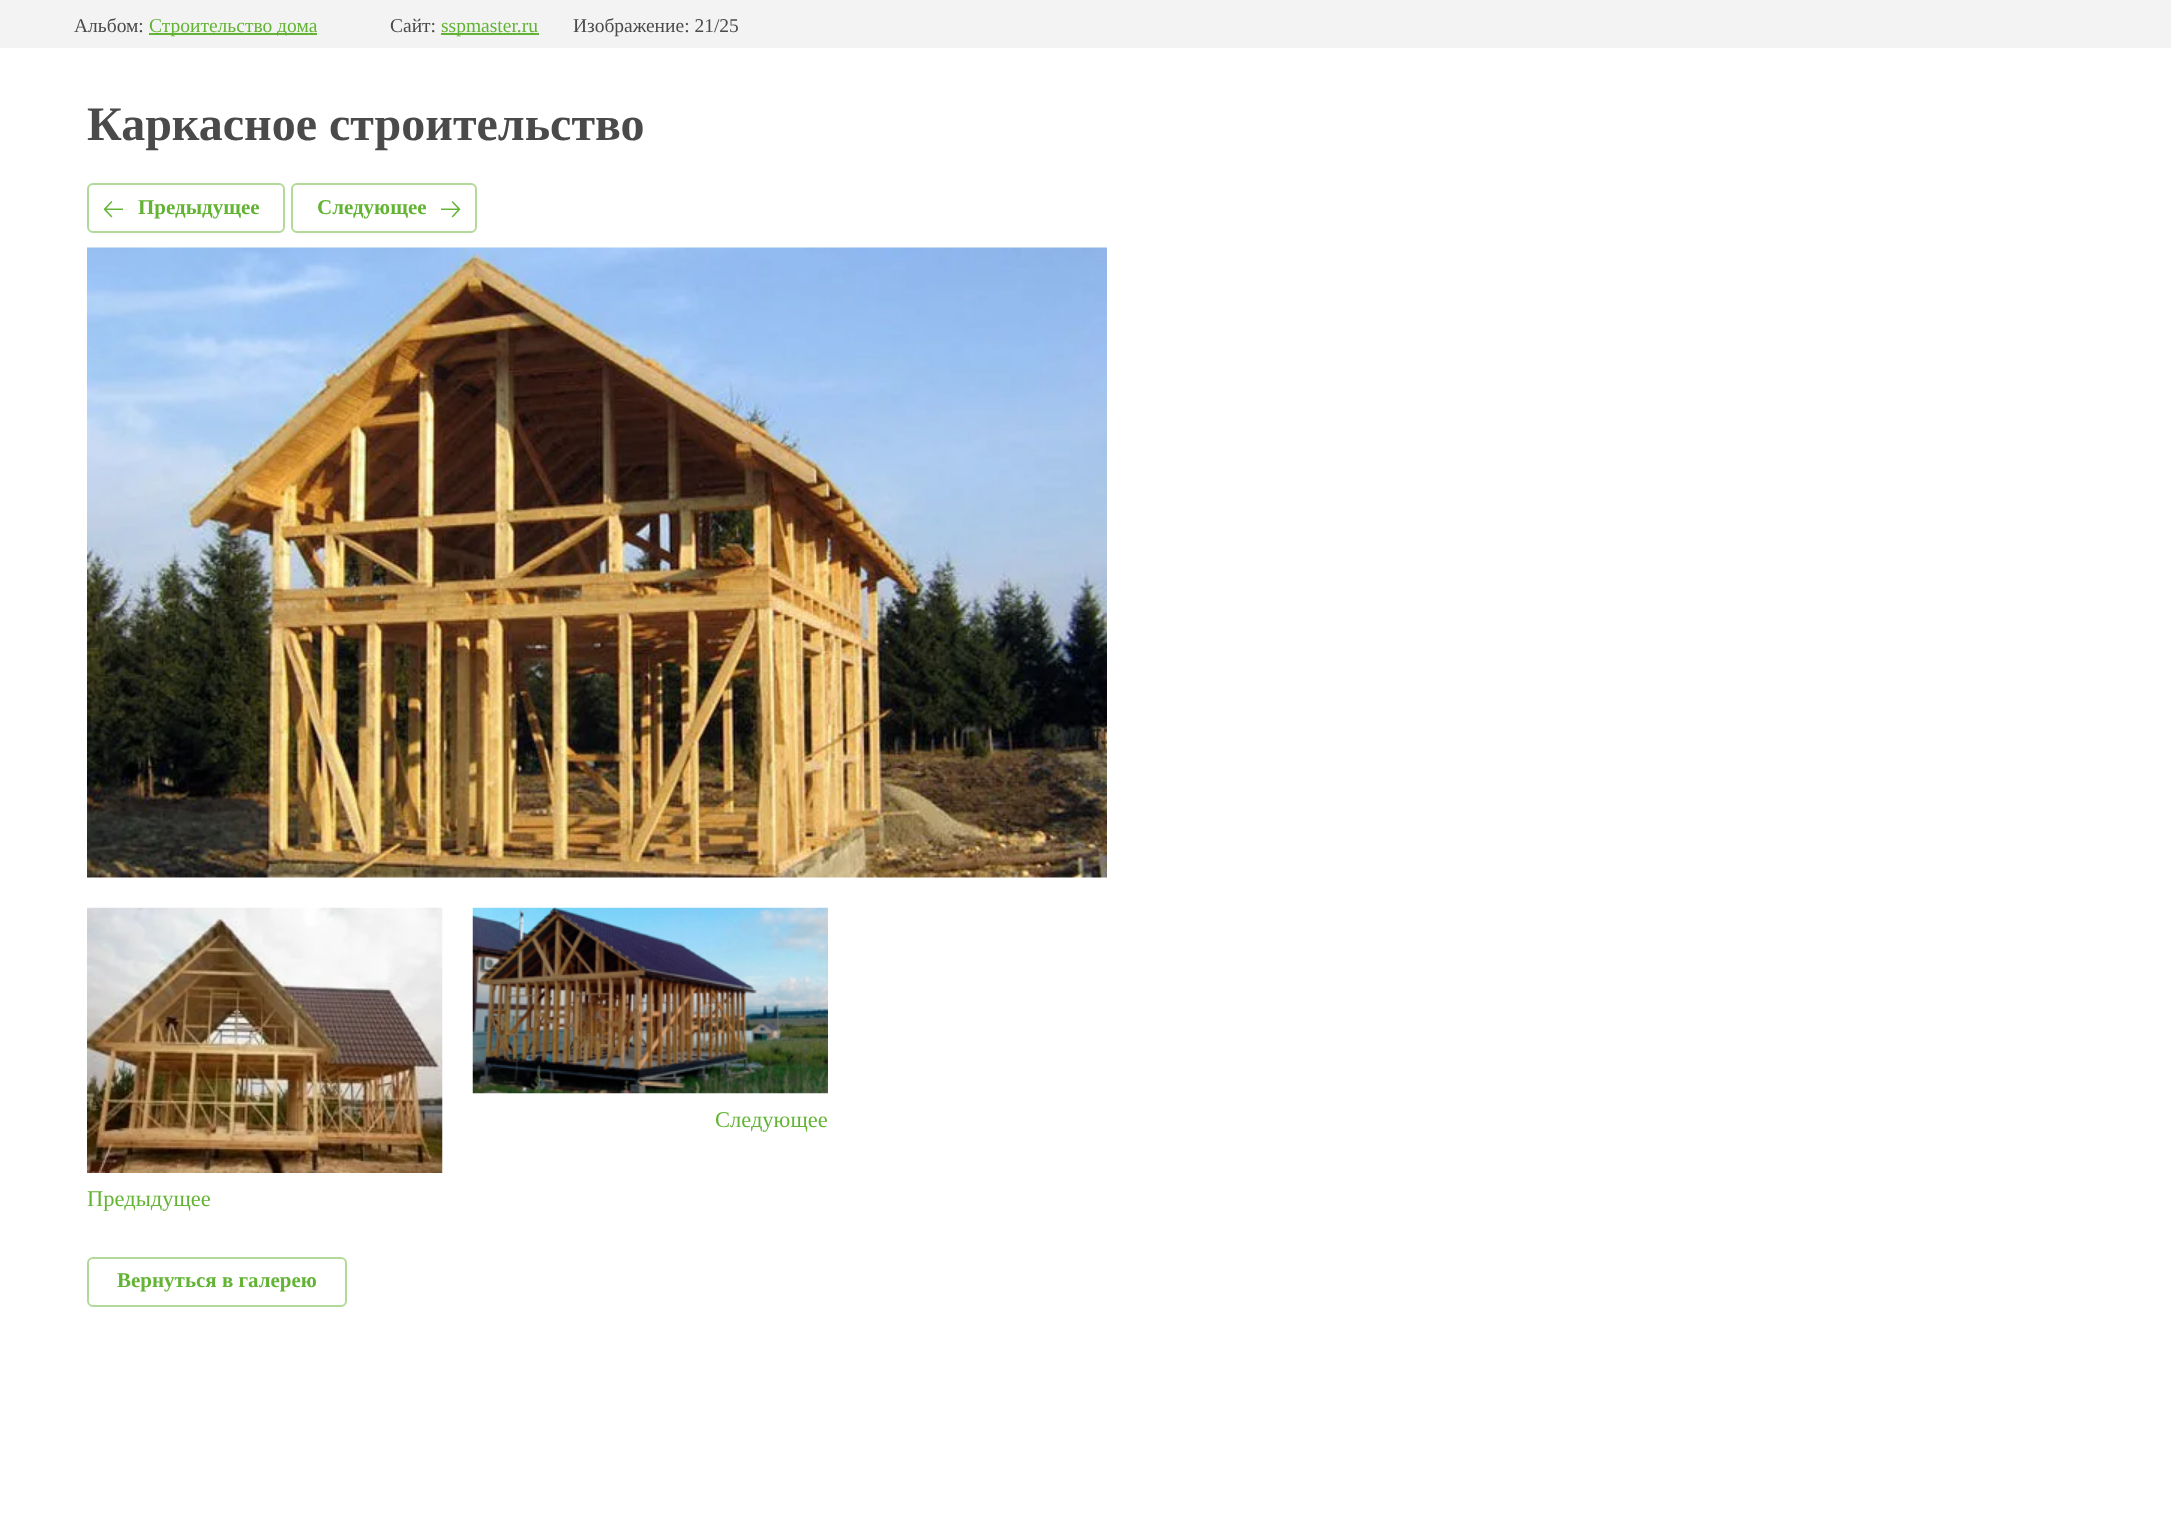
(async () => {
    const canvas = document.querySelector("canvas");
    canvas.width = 2171;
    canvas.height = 1537;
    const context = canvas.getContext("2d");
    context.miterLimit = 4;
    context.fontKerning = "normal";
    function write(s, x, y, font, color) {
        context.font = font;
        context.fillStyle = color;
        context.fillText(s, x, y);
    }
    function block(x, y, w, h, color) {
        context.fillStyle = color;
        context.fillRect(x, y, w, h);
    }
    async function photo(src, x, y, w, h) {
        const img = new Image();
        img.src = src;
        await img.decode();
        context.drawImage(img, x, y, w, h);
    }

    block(0, 0, 2171, 1537, "rgb(255, 255, 255)");
    block(0, 0, 2171, 48, "rgb(243, 243, 243)");
    write("Альбом:", 74, 32, "19.5px Liberation Serif", "rgb(74, 74, 74)");
    block(149, 33, 168, 2, "rgb(99, 180, 53)");
    write("Строительство дома", 149, 32, "19.5px Liberation Serif", "rgb(99, 180, 53)");
    write("Сайт:", 390, 32, "19.5px Liberation Serif", "rgb(74, 74, 74)");
    block(441, 33, 98, 2, "rgb(99, 180, 53)");
    write("sspmaster.ru", 441, 32, "19.5px Liberation Serif", "rgb(99, 180, 53)");
    write("Изображение: 21/25", 573, 32, "19.5px Liberation Serif", "rgb(74, 74, 74)");
    write("Каркасное строительство", 87, 140, "bold 48px Liberation Serif", "rgb(74, 74, 74)");
    context.beginPath();
    context.roundRect(88, 184, 196, 48, 5);
    context.strokeStyle = "rgb(177, 218, 154)";
    context.lineWidth = 2;
    context.stroke();
    await photo("media/1.png", 104, 201, 19, 17);
    write("Предыдущее", 138, 214, "bold 21px Liberation Serif", "rgb(99, 180, 53)");
    context.beginPath();
    context.roundRect(292, 184, 184, 48, 5);
    context.stroke();
    write("Следующее", 317, 214, "bold 21px Liberation Serif", "rgb(99, 180, 53)");
    await photo("media/2.png", 441, 201, 20, 17);
    await photo("media/3.png", 87, 247, 1020, 631);
    await photo("media/4.png", 472, 907, 356, 187);
    write("Следующее", 715, 1127, "22.5px Liberation Serif", "rgb(99, 180, 53)");
    await photo("media/5.png", 87, 907, 356, 266);
    write("Предыдущее", 87, 1206, "22.5px Liberation Serif", "rgb(99, 180, 53)");
    context.beginPath();
    context.roundRect(88, 1258, 258, 48, 5);
    context.stroke();
    write("Вернуться в галерею", 117, 1287, "bold 21px Liberation Serif", "rgb(99, 180, 53)");
})();
